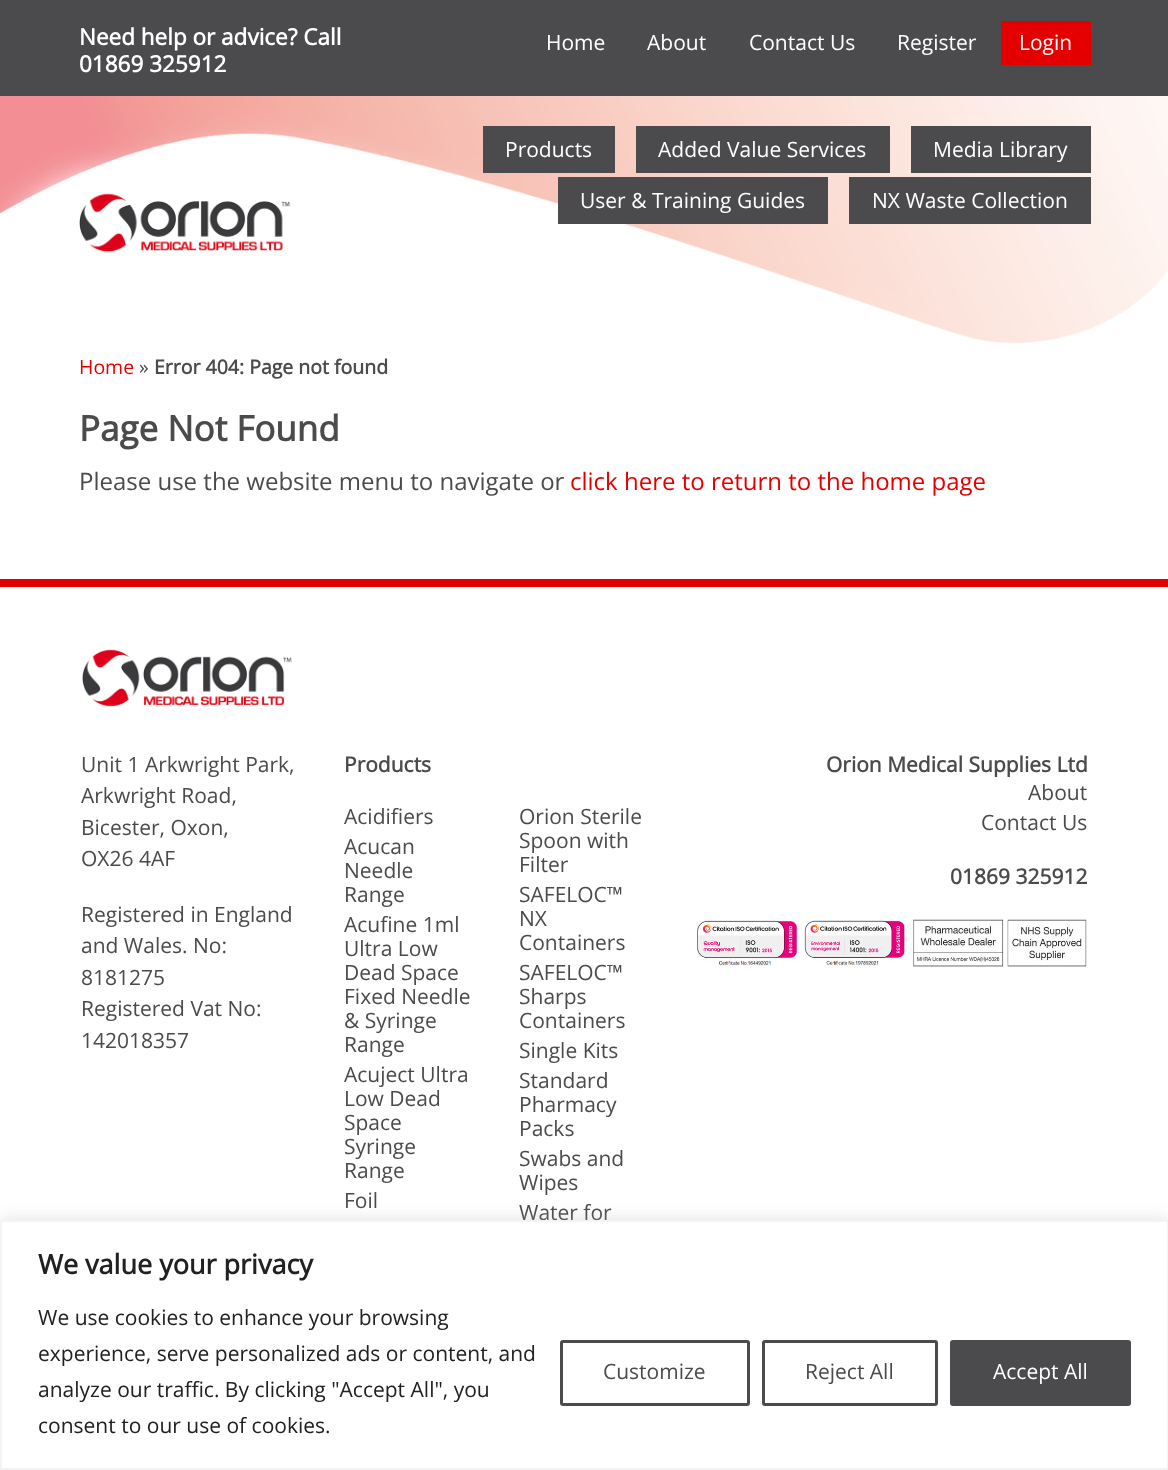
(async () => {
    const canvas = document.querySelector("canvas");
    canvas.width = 1168;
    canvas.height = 1470;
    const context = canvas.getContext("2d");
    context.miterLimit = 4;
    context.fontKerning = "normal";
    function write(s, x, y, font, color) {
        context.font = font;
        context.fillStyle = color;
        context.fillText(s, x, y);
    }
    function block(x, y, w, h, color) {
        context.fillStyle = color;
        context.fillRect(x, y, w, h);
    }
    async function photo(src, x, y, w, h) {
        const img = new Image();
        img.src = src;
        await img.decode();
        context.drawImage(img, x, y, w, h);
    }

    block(0, 0, 1168, 1470, "rgb(255, 255, 255)");
    block(0, 0, 1168, 96, "rgb(75, 75, 77)");
    write("Need help or advice? Call", 79, 45, "bold 22.5px Open Sans", "rgb(255, 255, 255)");
    write("01869 325912", 79, 72, "bold 22.5px Open Sans", "rgb(255, 255, 255)");
    write("Home", 546, 50, "21px Open Sans", "rgb(255, 255, 255)");
    write("About", 647, 50, "21px Open Sans", "rgb(255, 255, 255)");
    write("Contact Us", 749, 50, "21px Open Sans", "rgb(255, 255, 255)");
    write("Register", 897, 50, "21px Open Sans", "rgb(255, 255, 255)");
    block(1001, 21, 90, 44, "rgb(229, 0, 0)");
    write("Login", 1019, 50, "21px Open Sans", "rgb(255, 255, 255)");
    await photo("media/1.png", 0, 96, 1168, 247);
    block(483, 126, 132, 47, "rgb(75, 75, 77)");
    write("Products", 505, 157, "21px Open Sans", "rgb(255, 255, 255)");
    block(636, 126, 254, 47, "rgb(75, 75, 77)");
    write("Added Value Services", 658, 157, "21px Open Sans", "rgb(255, 255, 255)");
    block(911, 126, 180, 47, "rgb(75, 75, 77)");
    write("Media Library", 933, 157, "21px Open Sans", "rgb(255, 255, 255)");
    block(558, 177, 270, 47, "rgb(75, 75, 77)");
    write("User & Training Guides", 580, 208, "21px Open Sans", "rgb(255, 255, 255)");
    block(849, 177, 242, 47, "rgb(75, 75, 77)");
    write("NX Waste Collection", 872, 208, "21px Open Sans", "rgb(255, 255, 255)");
    await photo("media/2.png", 79, 193, 212, 60);
    write("Home", 79, 374, "19.5px Open Sans", "rgb(229, 0, 0)");
    write("»", 139, 374, "19.5px Open Sans", "rgb(75, 75, 77)");
    write("Error 404: Page not found", 154, 374, "bold 19.5px Open Sans", "rgb(75, 75, 77)");
    write("Page Not Found", 79, 441, "bold 35px Open Sans", "rgb(75, 75, 77)");
    write("Please use the website menu to navigate or", 79, 490, "24px Open Sans", "rgb(75, 75, 77)");
    write("click here to return to the home page", 570, 490, "24px Open Sans", "rgb(229, 0, 0)");
    block(0, 579, 1168, 8, "rgb(229, 0, 0)");
    await photo("media/3.png", 82, 649, 210, 58);
    write("Unit 1 Arkwright Park,", 81, 772, "21px Open Sans", "rgb(75, 75, 77)");
    write("Arkwright Road,", 81, 803, "21px Open Sans", "rgb(75, 75, 77)");
    write("Bicester, Oxon,", 81, 835, "21px Open Sans", "rgb(75, 75, 77)");
    write("OX26 4AF", 81, 866, "21px Open Sans", "rgb(75, 75, 77)");
    write("Registered in England", 81, 922, "21px Open Sans", "rgb(75, 75, 77)");
    write("and Wales. No:", 81, 953, "21px Open Sans", "rgb(75, 75, 77)");
    write("8181275", 81, 985, "21px Open Sans", "rgb(75, 75, 77)");
    write("Registered Vat No:", 81, 1016, "21px Open Sans", "rgb(75, 75, 77)");
    write("142018357", 81, 1048, "21px Open Sans", "rgb(75, 75, 77)");
    write("Products", 344, 772, "bold 21px Open Sans", "rgb(75, 75, 77)");
    write("Acidifiers", 344, 824, "21px Open Sans", "rgb(75, 75, 77)");
    write("Acucan", 344, 854, "21px Open Sans", "rgb(75, 75, 77)");
    write("Needle", 344, 878, "21px Open Sans", "rgb(75, 75, 77)");
    write("Range", 344, 902, "21px Open Sans", "rgb(75, 75, 77)");
    write("Acufine 1ml", 344, 932, "21px Open Sans", "rgb(75, 75, 77)");
    write("Ultra Low", 344, 956, "21px Open Sans", "rgb(75, 75, 77)");
    write("Dead Space", 344, 980, "21px Open Sans", "rgb(75, 75, 77)");
    write("Fixed Needle", 344, 1004, "21px Open Sans", "rgb(75, 75, 77)");
    write("& Syringe", 344, 1028, "21px Open Sans", "rgb(75, 75, 77)");
    write("Range", 344, 1052, "21px Open Sans", "rgb(75, 75, 77)");
    write("Acuject Ultra", 344, 1082, "21px Open Sans", "rgb(75, 75, 77)");
    write("Low Dead", 344, 1106, "21px Open Sans", "rgb(75, 75, 77)");
    write("Space", 344, 1130, "21px Open Sans", "rgb(75, 75, 77)");
    write("Syringe", 344, 1154, "21px Open Sans", "rgb(75, 75, 77)");
    write("Range", 344, 1178, "21px Open Sans", "rgb(75, 75, 77)");
    write("Foil", 344, 1208, "21px Open Sans", "rgb(75, 75, 77)");
    write("Orion Sterile", 519, 824, "21px Open Sans", "rgb(75, 75, 77)");
    write("Spoon with", 519, 848, "21px Open Sans", "rgb(75, 75, 77)");
    write("Filter", 519, 872, "21px Open Sans", "rgb(75, 75, 77)");
    write("SAFELOC™", 519, 902, "21px Open Sans", "rgb(75, 75, 77)");
    write("NX", 519, 926, "21px Open Sans", "rgb(75, 75, 77)");
    write("Containers", 519, 950, "21px Open Sans", "rgb(75, 75, 77)");
    write("SAFELOC™", 519, 980, "21px Open Sans", "rgb(75, 75, 77)");
    write("Sharps", 519, 1004, "21px Open Sans", "rgb(75, 75, 77)");
    write("Containers", 519, 1028, "21px Open Sans", "rgb(75, 75, 77)");
    write("Single Kits", 519, 1058, "21px Open Sans", "rgb(75, 75, 77)");
    write("Standard", 519, 1088, "21px Open Sans", "rgb(75, 75, 77)");
    write("Pharmacy", 519, 1112, "21px Open Sans", "rgb(75, 75, 77)");
    write("Packs", 519, 1136, "21px Open Sans", "rgb(75, 75, 77)");
    write("Swabs and", 519, 1166, "21px Open Sans", "rgb(75, 75, 77)");
    write("Wipes", 519, 1190, "21px Open Sans", "rgb(75, 75, 77)");
    write("Water for", 519, 1220, "21px Open Sans", "rgb(75, 75, 77)");
    write("Orion Medical Supplies Ltd", 826, 772, "bold 21px Open Sans", "rgb(75, 75, 77)");
    write("About", 1028, 800, "21px Open Sans", "rgb(75, 75, 77)");
    write("Contact Us", 981, 830, "21px Open Sans", "rgb(75, 75, 77)");
    write("01869 325912", 950, 884, "bold 21px Open Sans", "rgb(75, 75, 77)");
    await photo("media/4.png", 697, 919, 390, 48);
    context.fillStyle = "rgba(172, 171, 171, 0.3)";
    context.filter = "blur(7.5px)";
    context.beginPath();
    context.rect(0, 1218, 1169, 251);
    context.fill();
    context.filter = "none";
    context.fillStyle = "rgb(255, 255, 255)";
    context.beginPath();
    context.rect(1, 1221, 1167, 248);
    context.fill();
    context.strokeStyle = "rgb(244, 244, 244)";
    context.lineWidth = 2;
    context.stroke();
    write("We value your privacy", 38, 1274, "bold 27px Open Sans", "rgb(33, 33, 33)");
    write("We use cookies to enhance your browsing", 38, 1325, "21px Open Sans", "rgb(33, 33, 33)");
    write("experience, serve personalized ads or content, and", 38, 1361, "21px Open Sans", "rgb(33, 33, 33)");
    write("analyze our traffic. By clicking \"Accept All\", you", 38, 1397, "21px Open Sans", "rgb(33, 33, 33)");
    write("consent to our use of cookies.", 38, 1433, "21px Open Sans", "rgb(33, 33, 33)");
    context.beginPath();
    context.roundRect(561.5, 1341.5, 187, 63, 1.5);
    context.strokeStyle = "rgb(75, 75, 77)";
    context.lineWidth = 3;
    context.stroke();
    write("Customize", 603, 1379, "21px Open Sans", "rgb(75, 75, 77)");
    context.beginPath();
    context.roundRect(763.5, 1341.5, 173, 63, 1.5);
    context.stroke();
    write("Reject All", 805, 1379, "21px Open Sans", "rgb(75, 75, 77)");
    context.beginPath();
    context.roundRect(951.5, 1341.5, 178, 63, 1.5);
    context.fill();
    context.stroke();
    write("Accept All", 993, 1379, "21px Open Sans", "rgb(255, 255, 255)");
})();
